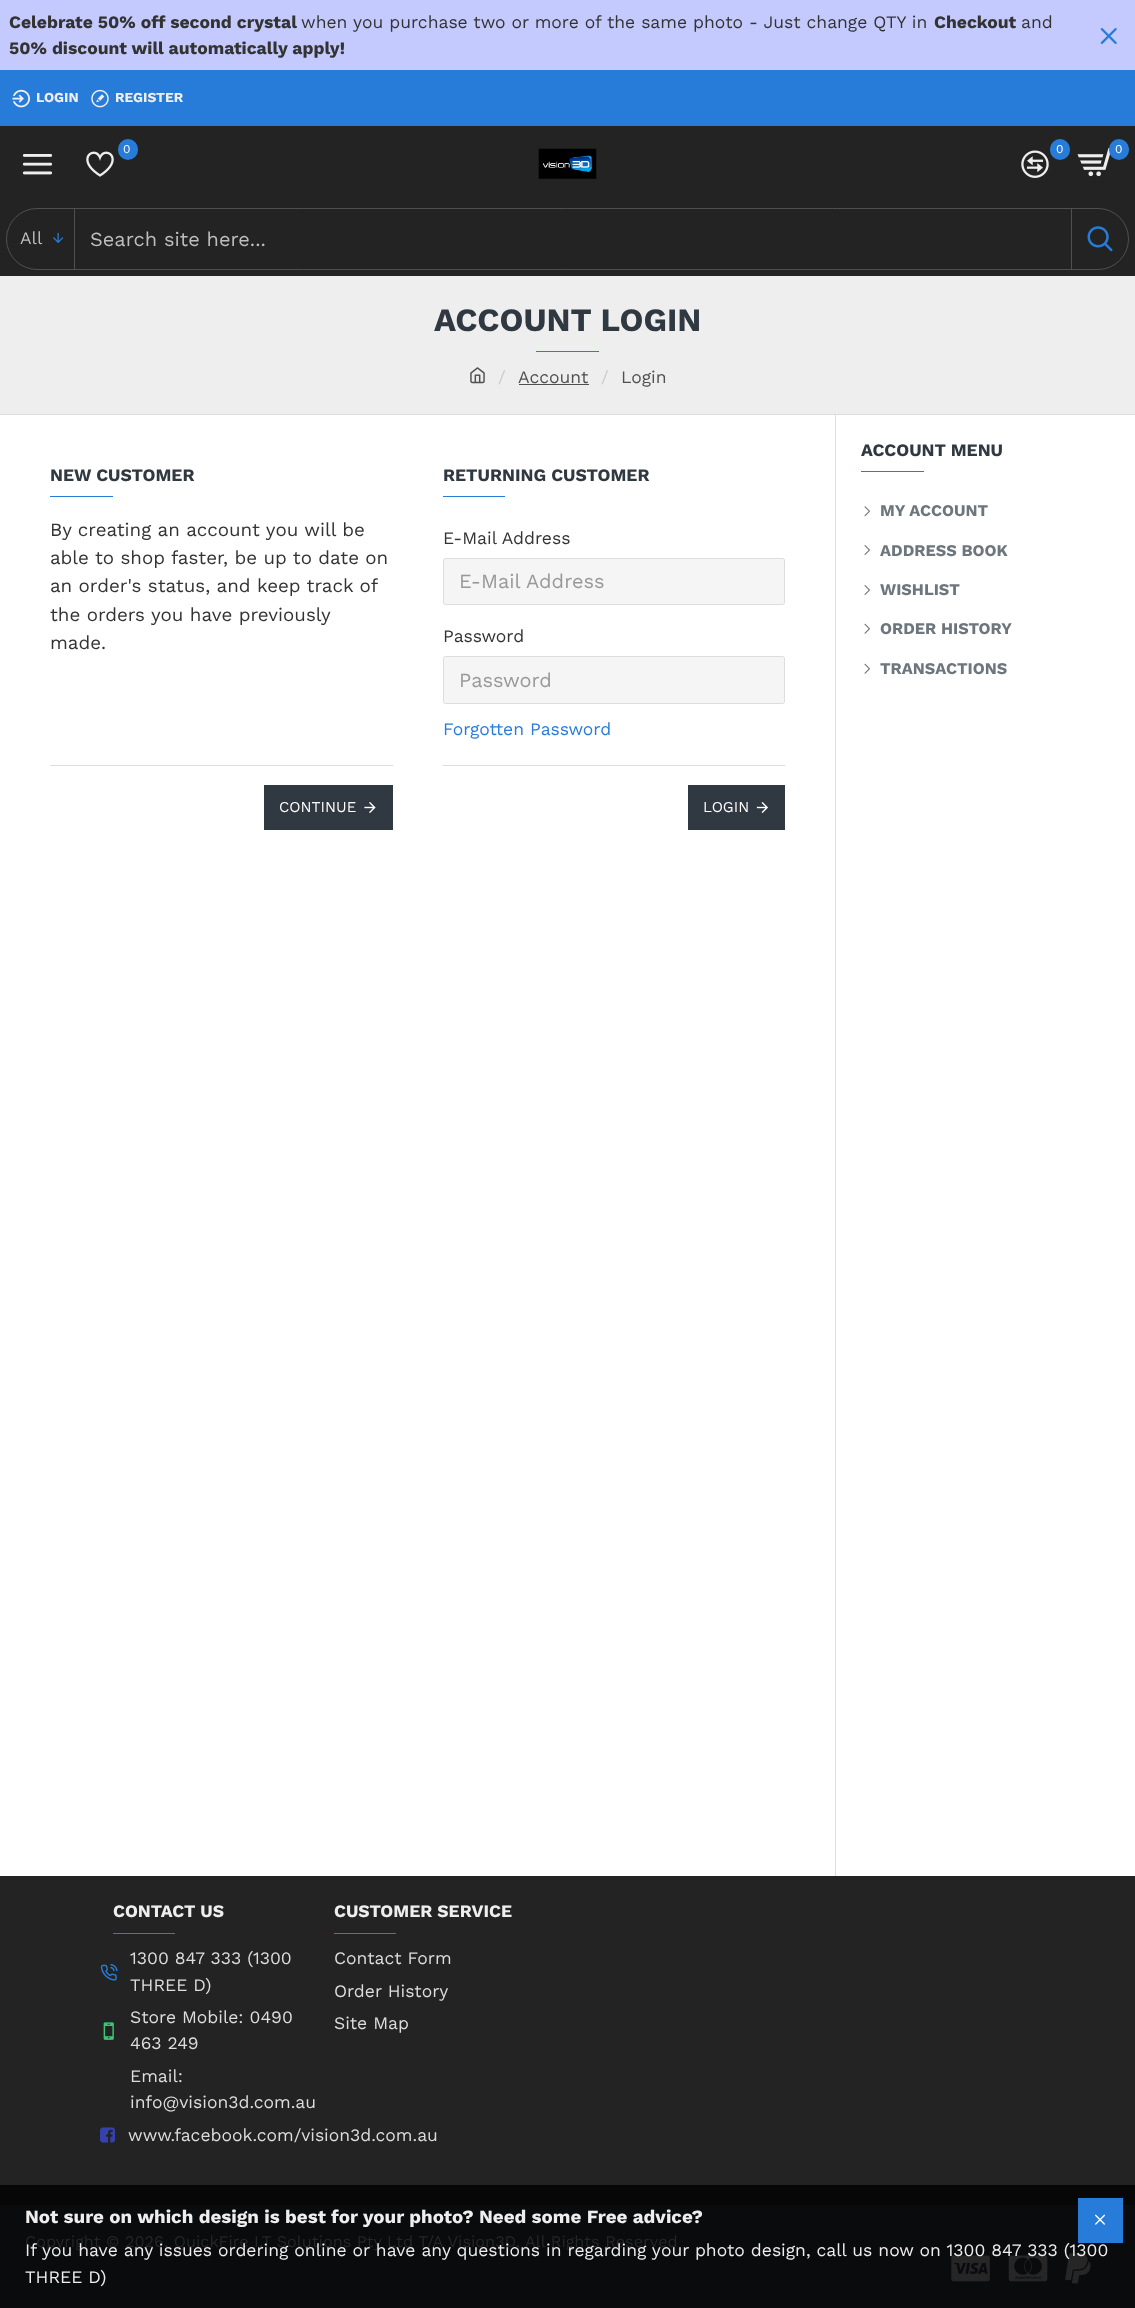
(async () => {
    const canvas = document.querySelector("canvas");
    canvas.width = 1135;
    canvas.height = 2308;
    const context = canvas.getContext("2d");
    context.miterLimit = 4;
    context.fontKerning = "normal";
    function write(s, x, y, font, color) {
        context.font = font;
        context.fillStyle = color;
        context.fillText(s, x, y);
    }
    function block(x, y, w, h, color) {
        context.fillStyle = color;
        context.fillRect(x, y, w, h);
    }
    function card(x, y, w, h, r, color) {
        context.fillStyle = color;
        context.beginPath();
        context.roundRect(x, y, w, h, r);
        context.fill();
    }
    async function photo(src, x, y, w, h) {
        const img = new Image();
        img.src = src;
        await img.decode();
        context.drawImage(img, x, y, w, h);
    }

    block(0, 0, 1135, 2308, "rgb(255, 255, 255)");
    block(0, 0, 1135, 70, "rgb(196, 202, 253)");
    write("Celebrate 50% off second crystal", 9, 28, "bold 17.5px Work Sans", "rgb(51, 51, 51)");
    write("when you purchase two or more of the same photo - Just change QTY in", 301, 28, "17.5px Work Sans", "rgb(51, 51, 51)");
    write("Checkout", 934, 28, "bold 17.5px Work Sans", "rgb(51, 51, 51)");
    write("and", 1021, 28, "17.5px Work Sans", "rgb(51, 51, 51)");
    write("50% discount will automatically apply!", 9, 54, "bold 17.5px Work Sans", "rgb(51, 51, 51)");
    await photo("media/1.png", 1100, 28, 17, 16);
    block(0, 70, 1135, 56, "rgb(39, 124, 217)");
    await photo("media/2.png", 12, 89, 18, 19);
    write("LOGIN", 36, 102, "bold 13.75px Work Sans", "rgb(238, 238, 238)");
    await photo("media/3.png", 91, 89, 18, 19);
    write("REGISTER", 115, 102, "bold 13.75px Work Sans", "rgb(238, 238, 238)");
    block(0, 126, 1135, 150, "rgb(35, 35, 35)");
    await photo("media/4.png", 22, 154, 31, 21);
    card(118, 139, 20, 21, 10, "rgb(39, 124, 217)");
    write("0", 123, 153, "12px Work Sans", "rgb(255, 255, 255)");
    await photo("media/5.png", 86, 151, 28, 26);
    await photo("media/6.png", 538, 148, 59, 31);
    card(1050, 139, 20, 21, 10, "rgb(39, 124, 217)");
    write("0", 1056, 153, "12px Work Sans", "rgb(255, 255, 255)");
    await photo("media/7.png", 1021, 150, 28, 28);
    await photo("media/8.png", 1077, 147, 33, 30);
    card(1109, 139, 20, 21, 10, "rgb(39, 124, 217)");
    write("0", 1115, 153, "12px Work Sans", "rgb(255, 255, 255)");
    context.beginPath();
    context.roundRect(6.5, 208.5, 1122, 61, 30.5);
    context.strokeStyle = "rgb(80, 80, 80)";
    context.stroke();
    block(74, 209, 1, 60, "rgb(80, 80, 80)");
    write("All", 20, 244, "17.5px Work Sans", "rgb(190, 190, 190)");
    await photo("media/9.png", 53, 232, 11, 12);
    write("Search site here...", 90, 246, "20px Work Sans", "rgb(190, 190, 190)");
    block(1071, 209, 1, 60, "rgb(80, 80, 80)");
    await photo("media/10.png", 1087, 226, 26, 26);
    block(0, 276, 1135, 138, "rgb(238, 238, 238)");
    write("ACCOUNT LOGIN", 434, 331, "bold 32.5px Work Sans", "rgb(48, 56, 65)");
    block(536, 351, 63, 1, "rgb(39, 124, 217)");
    block(0, 414, 1135, 1, "rgb(221, 221, 221)");
    await photo("media/11.png", 470, 367, 15, 17);
    write("/", 498, 383, "17.5px Work Sans", "rgb(204, 204, 204)");
    write("Account", 518, 383, "17.5px Work Sans", "rgb(80, 80, 80)");
    block(519, 384, 70, 1, "rgb(80, 80, 80)");
    write("/", 601, 383, "17.5px Work Sans", "rgb(204, 204, 204)");
    write("Login", 621, 383, "17.5px Work Sans", "rgb(80, 80, 80)");
    write("NEW CUSTOMER", 50, 481, "bold 17.5px Work Sans", "rgb(48, 56, 65)");
    block(50, 496, 63, 1, "rgb(39, 124, 217)");
    write("By creating an account you will be", 50, 536, "18.75px Work Sans", "rgb(51, 51, 51)");
    write("able to shop faster, be up to date on", 50, 564, "18.75px Work Sans", "rgb(51, 51, 51)");
    write("an order's status, and keep track of", 50, 592, "18.75px Work Sans", "rgb(51, 51, 51)");
    write("the orders you have previously", 50, 621, "18.75px Work Sans", "rgb(51, 51, 51)");
    write("made.", 50, 649, "18.75px Work Sans", "rgb(51, 51, 51)");
    block(50, 765, 343, 1, "rgb(221, 221, 221)");
    block(264, 785, 129, 45, "rgb(48, 56, 65)");
    write("CONTINUE", 279, 812, "15px Work Sans", "rgb(255, 255, 255)");
    await photo("media/12.png", 364, 802, 12, 11);
    write("RETURNING CUSTOMER", 443, 481, "bold 17.5px Work Sans", "rgb(48, 56, 65)");
    block(443, 496, 62, 1, "rgb(39, 124, 217)");
    write("E-Mail Address", 443, 544, "17.5px Work Sans", "rgb(51, 51, 51)");
    context.fillStyle = "rgb(245, 245, 245)";
    context.beginPath();
    context.roundRect(443.5, 558.5, 341, 46, 2);
    context.fill();
    context.strokeStyle = "rgb(221, 221, 221)";
    context.stroke();
    write("E-Mail Address", 459, 588, "20px Work Sans", "rgb(153, 153, 153)");
    write("Password", 443, 642, "17.5px Work Sans", "rgb(51, 51, 51)");
    context.fillStyle = "rgb(245, 245, 245)";
    context.beginPath();
    context.roundRect(443.5, 656.5, 341, 47, 2);
    context.fill();
    context.stroke();
    write("Password", 459, 687, "20px Work Sans", "rgb(153, 153, 153)");
    write("Forgotten Password", 443, 735, "17.5px Work Sans", "rgb(39, 124, 217)");
    block(443, 765, 342, 1, "rgb(221, 221, 221)");
    block(688, 785, 97, 45, "rgb(48, 56, 65)");
    write("LOGIN", 703, 812, "15px Work Sans", "rgb(255, 255, 255)");
    await photo("media/13.png", 756, 802, 12, 11);
    block(835, 415, 1, 1461, "rgb(221, 221, 221)");
    write("ACCOUNT MENU", 861, 456, "bold 17.5px Work Sans", "rgb(48, 56, 65)");
    block(861, 471, 63, 1, "rgb(39, 124, 217)");
    await photo("media/14.png", 864, 506, 6, 11);
    write("MY ACCOUNT", 880, 516, "bold 16.25px Work Sans", "rgb(109, 118, 125)");
    await photo("media/15.png", 864, 545, 6, 10);
    write("ADDRESS BOOK", 880, 556, "bold 16.25px Work Sans", "rgb(109, 118, 125)");
    await photo("media/15.png", 864, 585, 6, 10);
    write("WISHLIST", 880, 595, "bold 16.25px Work Sans", "rgb(109, 118, 125)");
    await photo("media/16.png", 864, 623, 6, 11);
    write("ORDER HISTORY", 880, 634, "bold 16.25px Work Sans", "rgb(109, 118, 125)");
    await photo("media/16.png", 864, 663, 6, 11);
    write("TRANSACTIONS", 880, 674, "bold 16.25px Work Sans", "rgb(109, 118, 125)");
    block(0, 1876, 1135, 309, "rgb(35, 35, 35)");
    block(0, 2185, 1135, 20, "rgb(7, 7, 7)");
    write("CONTACT US", 113, 1917, "bold 17.5px Work Sans", "rgb(238, 238, 238)");
    block(113, 1933, 62, 1, "rgb(39, 124, 217)");
    await photo("media/17.png", 100, 1964, 18, 17);
    write("1300 847 333 (1300", 130, 1964, "17.5px Work Sans", "rgb(221, 221, 221)");
    write("THREE D)", 130, 1991, "17.5px Work Sans", "rgb(221, 221, 221)");
    await photo("media/18.png", 103, 2022, 11, 18);
    write("Store Mobile: 0490", 130, 2023, "17.5px Work Sans", "rgb(221, 221, 221)");
    write("463 249", 130, 2049, "17.5px Work Sans", "rgb(221, 221, 221)");
    write("Email:", 130, 2082, "17.5px Work Sans", "rgb(221, 221, 221)");
    write("info@vision3d.com.au", 130, 2108, "17.5px Work Sans", "rgb(221, 221, 221)");
    await photo("media/19.png", 100, 2127, 15, 16);
    write("www.facebook.com/vision3d.com.au", 128, 2141, "17.5px Work Sans", "rgb(221, 221, 221)");
    write("CUSTOMER SERVICE", 334, 1917, "bold 17.5px Work Sans", "rgb(238, 238, 238)");
    block(334, 1933, 62, 1, "rgb(39, 124, 217)");
    write("Contact Form", 334, 1964, "17.5px Work Sans", "rgb(221, 221, 221)");
    write("Order History", 334, 1997, "17.5px Work Sans", "rgb(221, 221, 221)");
    write("Site Map", 334, 2029, "17.5px Work Sans", "rgb(221, 221, 221)");
    block(0, 2205, 1135, 103, "rgb(10, 11, 13)");
    write("Copyright © 2026, QuickFire I.T Solutions Pty Ltd T/A Vision3D, All Rights Reserved", 25, 2247, "16.25px Work Sans", "rgb(38, 38, 38)");
    await photo("media/20.png", 951, 2255, 39, 27);
    await photo("media/21.png", 1008, 2255, 40, 27);
    await photo("media/22.png", 1065, 2253, 26, 31);
    write("If you have any issues ordering online or have any questions in regarding your photo design, call us now on 1300 847 333 (1300", 25, 2256, "17.5px Work Sans", "rgb(238, 238, 238)");
    block(1078, 2198, 45, 45, "rgb(39, 124, 217)");
    await photo("media/23.png", 1095, 2214, 10, 11);
    write("Not sure on which design is best for your photo? Need some Free advice?", 25, 2223, "bold 18.75px Work Sans", "rgb(238, 238, 238)");
    write("THREE D)", 25, 2283, "17.5px Work Sans", "rgb(238, 238, 238)");
})();
